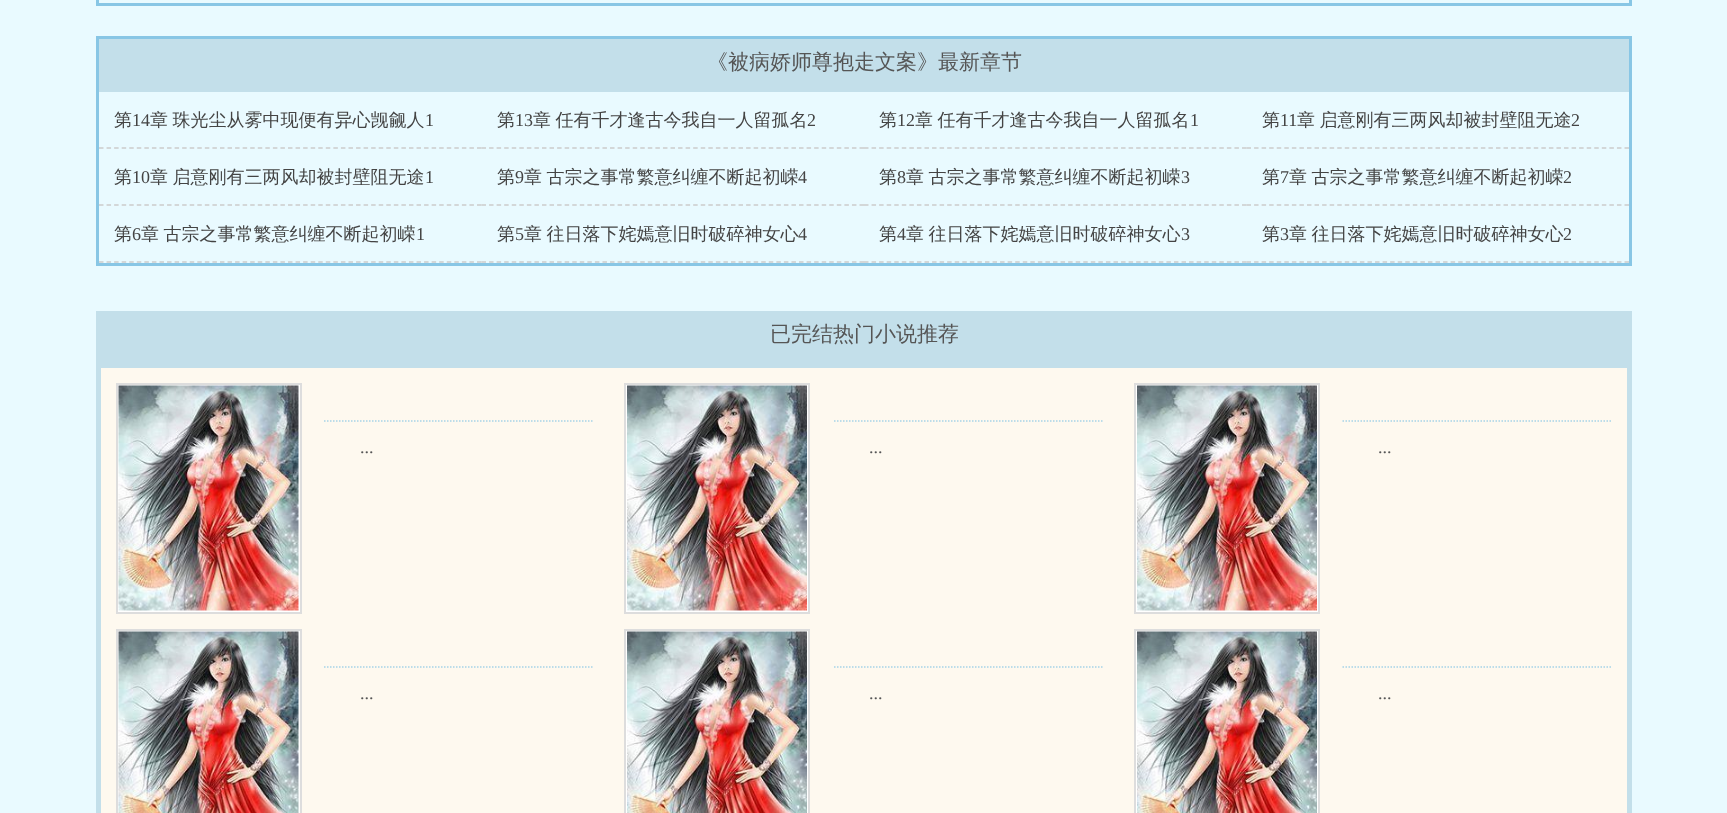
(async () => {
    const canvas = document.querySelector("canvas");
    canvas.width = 1727;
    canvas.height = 813;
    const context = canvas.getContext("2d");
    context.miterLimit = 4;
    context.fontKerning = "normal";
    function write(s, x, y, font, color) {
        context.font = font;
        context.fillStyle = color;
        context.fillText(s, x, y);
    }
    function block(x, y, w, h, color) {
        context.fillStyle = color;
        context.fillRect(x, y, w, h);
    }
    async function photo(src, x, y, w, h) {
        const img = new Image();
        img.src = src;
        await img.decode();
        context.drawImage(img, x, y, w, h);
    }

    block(0, 0, 1727, 813, "rgb(233, 250, 255)");
    context.strokeStyle = "rgb(136, 198, 229)";
    context.lineWidth = 3;
    context.strokeRect(97.5, -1.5, 1533, 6);
    context.strokeRect(97.5, 37.5, 1533, 227);
    block(99, 39, 1530, 53, "rgb(195, 223, 234)");
    write("《被病娇师尊抱走文案》最新章节", 707, 69, "500 21px WenQuanYi Zen Hei", "rgb(85, 85, 85)");
    context.beginPath();
    context.moveTo(99, 148);
    context.lineTo(481.5, 148);
    context.strokeStyle = "rgb(204, 204, 204)";
    context.lineWidth = 1.5;
    context.setLineDash([4.5, 3.06]);
    context.stroke();
    write("第", 114, 126, "500 18px WenQuanYi Zen Hei", "rgb(68, 68, 68)");
    write("14", 132, 126, "18px Liberation Serif", "rgb(68, 68, 68)");
    context.wordSpacing = "-1px";
    write("章 珠光尘从雾中现便有异心觊觎人", 150, 126, "500 18px WenQuanYi Zen Hei", "rgb(68, 68, 68)");
    context.wordSpacing = "0px";
    write("1", 425, 126, "18px Liberation Serif", "rgb(68, 68, 68)");
    context.beginPath();
    context.moveTo(481.5, 148);
    context.lineTo(864, 148);
    context.stroke();
    write("第", 497, 126, "500 18px WenQuanYi Zen Hei", "rgb(68, 68, 68)");
    write("13", 515, 126, "18px Liberation Serif", "rgb(68, 68, 68)");
    context.wordSpacing = "-1px";
    write("章 任有千才逢古今我自一人留孤名", 533, 126, "500 18px WenQuanYi Zen Hei", "rgb(68, 68, 68)");
    context.wordSpacing = "0px";
    write("2", 807, 126, "18px Liberation Serif", "rgb(68, 68, 68)");
    context.beginPath();
    context.moveTo(864, 148);
    context.lineTo(1246.5, 148);
    context.stroke();
    write("第", 879, 126, "500 18px WenQuanYi Zen Hei", "rgb(68, 68, 68)");
    write("12", 897, 126, "18px Liberation Serif", "rgb(68, 68, 68)");
    context.wordSpacing = "-1px";
    write("章 任有千才逢古今我自一人留孤名", 915, 126, "500 18px WenQuanYi Zen Hei", "rgb(68, 68, 68)");
    context.wordSpacing = "0px";
    write("1", 1190, 126, "18px Liberation Serif", "rgb(68, 68, 68)");
    context.beginPath();
    context.moveTo(1246.5, 148);
    context.lineTo(1629, 148);
    context.stroke();
    write("第", 1262, 126, "500 18px WenQuanYi Zen Hei", "rgb(68, 68, 68)");
    write("11", 1280, 126, "18px Liberation Serif", "rgb(68, 68, 68)");
    context.wordSpacing = "-1px";
    write("章 启意刚有三两风却被封壁阻无途", 1297, 126, "500 18px WenQuanYi Zen Hei", "rgb(68, 68, 68)");
    context.wordSpacing = "0px";
    write("2", 1571, 126, "18px Liberation Serif", "rgb(68, 68, 68)");
    context.beginPath();
    context.moveTo(99, 205);
    context.lineTo(481.5, 205);
    context.stroke();
    write("第", 114, 183, "500 18px WenQuanYi Zen Hei", "rgb(68, 68, 68)");
    write("10", 132, 183, "18px Liberation Serif", "rgb(68, 68, 68)");
    context.wordSpacing = "-1px";
    write("章 启意刚有三两风却被封壁阻无途", 150, 183, "500 18px WenQuanYi Zen Hei", "rgb(68, 68, 68)");
    context.wordSpacing = "0px";
    write("1", 425, 183, "18px Liberation Serif", "rgb(68, 68, 68)");
    context.beginPath();
    context.moveTo(481.5, 205);
    context.lineTo(864, 205);
    context.stroke();
    write("第", 497, 183, "500 18px WenQuanYi Zen Hei", "rgb(68, 68, 68)");
    write("9", 515, 183, "18px Liberation Serif", "rgb(68, 68, 68)");
    context.wordSpacing = "-1px";
    write("章 古宗之事常繁意纠缠不断起初嵘", 524, 183, "500 18px WenQuanYi Zen Hei", "rgb(68, 68, 68)");
    context.wordSpacing = "0px";
    write("4", 798, 183, "18px Liberation Serif", "rgb(68, 68, 68)");
    context.beginPath();
    context.moveTo(864, 205);
    context.lineTo(1246.5, 205);
    context.stroke();
    write("第", 879, 183, "500 18px WenQuanYi Zen Hei", "rgb(68, 68, 68)");
    write("8", 897, 183, "18px Liberation Serif", "rgb(68, 68, 68)");
    context.wordSpacing = "-1px";
    write("章 古宗之事常繁意纠缠不断起初嵘", 906, 183, "500 18px WenQuanYi Zen Hei", "rgb(68, 68, 68)");
    context.wordSpacing = "0px";
    write("3", 1181, 183, "18px Liberation Serif", "rgb(68, 68, 68)");
    context.beginPath();
    context.moveTo(1246.5, 205);
    context.lineTo(1629, 205);
    context.stroke();
    write("第", 1262, 183, "500 18px WenQuanYi Zen Hei", "rgb(68, 68, 68)");
    write("7", 1280, 183, "18px Liberation Serif", "rgb(68, 68, 68)");
    context.wordSpacing = "-1px";
    write("章 古宗之事常繁意纠缠不断起初嵘", 1289, 183, "500 18px WenQuanYi Zen Hei", "rgb(68, 68, 68)");
    context.wordSpacing = "0px";
    write("2", 1563, 183, "18px Liberation Serif", "rgb(68, 68, 68)");
    context.beginPath();
    context.moveTo(99, 262);
    context.lineTo(481.5, 262);
    context.stroke();
    write("第", 114, 240, "500 18px WenQuanYi Zen Hei", "rgb(68, 68, 68)");
    write("6", 132, 240, "18px Liberation Serif", "rgb(68, 68, 68)");
    context.wordSpacing = "-1px";
    write("章 古宗之事常繁意纠缠不断起初嵘", 141, 240, "500 18px WenQuanYi Zen Hei", "rgb(68, 68, 68)");
    context.wordSpacing = "0px";
    write("1", 416, 240, "18px Liberation Serif", "rgb(68, 68, 68)");
    context.beginPath();
    context.moveTo(481.5, 262);
    context.lineTo(864, 262);
    context.stroke();
    write("第", 497, 240, "500 18px WenQuanYi Zen Hei", "rgb(68, 68, 68)");
    write("5", 515, 240, "18px Liberation Serif", "rgb(68, 68, 68)");
    context.wordSpacing = "-1px";
    write("章 往日落下姹嫣意旧时破碎神女心", 524, 240, "500 18px WenQuanYi Zen Hei", "rgb(68, 68, 68)");
    context.wordSpacing = "0px";
    write("4", 798, 240, "18px Liberation Serif", "rgb(68, 68, 68)");
    context.beginPath();
    context.moveTo(864, 262);
    context.lineTo(1246.5, 262);
    context.stroke();
    write("第", 879, 240, "500 18px WenQuanYi Zen Hei", "rgb(68, 68, 68)");
    write("4", 897, 240, "18px Liberation Serif", "rgb(68, 68, 68)");
    context.wordSpacing = "-1px";
    write("章 往日落下姹嫣意旧时破碎神女心", 906, 240, "500 18px WenQuanYi Zen Hei", "rgb(68, 68, 68)");
    context.wordSpacing = "0px";
    write("3", 1181, 240, "18px Liberation Serif", "rgb(68, 68, 68)");
    context.beginPath();
    context.moveTo(1246.5, 262);
    context.lineTo(1629, 262);
    context.stroke();
    write("第", 1262, 240, "500 18px WenQuanYi Zen Hei", "rgb(68, 68, 68)");
    write("3", 1280, 240, "18px Liberation Serif", "rgb(68, 68, 68)");
    context.wordSpacing = "-1px";
    write("章 往日落下姹嫣意旧时破碎神女心", 1289, 240, "500 18px WenQuanYi Zen Hei", "rgb(68, 68, 68)");
    context.wordSpacing = "0px";
    write("2", 1563, 240, "18px Liberation Serif", "rgb(68, 68, 68)");
    block(96, 311, 1536, 52, "rgb(195, 223, 234)");
    write("已完结热门小说推荐", 770, 341, "500 21px WenQuanYi Zen Hei", "rgb(85, 85, 85)");
    context.fillStyle = "rgb(254, 249, 239)";
    context.beginPath();
    context.rect(98.5, 365.5, 1531, 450);
    context.fill();
    context.strokeStyle = "rgb(195, 223, 234)";
    context.lineWidth = 5;
    context.setLineDash([]);
    context.stroke();
    context.fillStyle = "rgb(255, 255, 255)";
    context.beginPath();
    context.rect(117, 384, 184, 229);
    context.fill();
    context.strokeStyle = "rgb(221, 221, 221)";
    context.lineWidth = 2;
    context.stroke();
    await photo("media/1.png", 118, 385, 181, 226);
    context.beginPath();
    context.moveTo(324, 421);
    context.lineTo(594, 421);
    context.strokeStyle = "rgb(166, 211, 232)";
    context.lineWidth = 1.5;
    context.setLineDash([1.5, 1.5]);
    context.stroke();
    write("...", 360, 453, "18px Liberation Serif", "rgb(85, 85, 85)");
    context.fillStyle = "rgb(255, 255, 255)";
    context.beginPath();
    context.rect(625, 384, 184, 229);
    context.fill();
    context.strokeStyle = "rgb(221, 221, 221)";
    context.lineWidth = 2;
    context.setLineDash([]);
    context.stroke();
    await photo("media/2.png", 627, 385, 180, 226);
    context.beginPath();
    context.moveTo(834, 421);
    context.lineTo(1104, 421);
    context.strokeStyle = "rgb(166, 211, 232)";
    context.lineWidth = 1.5;
    context.setLineDash([1.5, 1.5]);
    context.stroke();
    write("...", 869, 453, "18px Liberation Serif", "rgb(85, 85, 85)");
    context.fillStyle = "rgb(255, 255, 255)";
    context.beginPath();
    context.rect(1135, 384, 184, 229);
    context.fill();
    context.strokeStyle = "rgb(221, 221, 221)";
    context.lineWidth = 2;
    context.setLineDash([]);
    context.stroke();
    await photo("media/3.png", 1137, 385, 180, 226);
    context.beginPath();
    context.moveTo(1342.5, 421);
    context.lineTo(1612.5, 421);
    context.strokeStyle = "rgb(166, 211, 232)";
    context.lineWidth = 1.5;
    context.setLineDash([1.5, 1.5]);
    context.stroke();
    write("...", 1378, 453, "18px Liberation Serif", "rgb(85, 85, 85)");
    context.fillStyle = "rgb(255, 255, 255)";
    context.beginPath();
    context.rect(117, 630, 184, 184);
    context.fill();
    context.strokeStyle = "rgb(221, 221, 221)";
    context.lineWidth = 2;
    context.setLineDash([]);
    context.stroke();
    await photo("media/4.png", 118, 631, 181, 182);
    context.beginPath();
    context.moveTo(324, 667);
    context.lineTo(594, 667);
    context.strokeStyle = "rgb(166, 211, 232)";
    context.lineWidth = 1.5;
    context.setLineDash([1.5, 1.5]);
    context.stroke();
    write("...", 360, 699, "18px Liberation Serif", "rgb(85, 85, 85)");
    context.fillStyle = "rgb(255, 255, 255)";
    context.beginPath();
    context.rect(625, 630, 184, 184);
    context.fill();
    context.strokeStyle = "rgb(221, 221, 221)";
    context.lineWidth = 2;
    context.setLineDash([]);
    context.stroke();
    await photo("media/5.png", 627, 631, 180, 182);
    context.beginPath();
    context.moveTo(834, 667);
    context.lineTo(1104, 667);
    context.strokeStyle = "rgb(166, 211, 232)";
    context.lineWidth = 1.5;
    context.setLineDash([1.5, 1.5]);
    context.stroke();
    write("...", 869, 699, "18px Liberation Serif", "rgb(85, 85, 85)");
    context.fillStyle = "rgb(255, 255, 255)";
    context.beginPath();
    context.rect(1135, 630, 184, 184);
    context.fill();
    context.strokeStyle = "rgb(221, 221, 221)";
    context.lineWidth = 2;
    context.setLineDash([]);
    context.stroke();
    await photo("media/6.png", 1137, 631, 180, 182);
    context.beginPath();
    context.moveTo(1342.5, 667);
    context.lineTo(1612.5, 667);
    context.strokeStyle = "rgb(166, 211, 232)";
    context.lineWidth = 1.5;
    context.setLineDash([1.5, 1.5]);
    context.stroke();
    write("...", 1378, 699, "18px Liberation Serif", "rgb(85, 85, 85)");
})();
